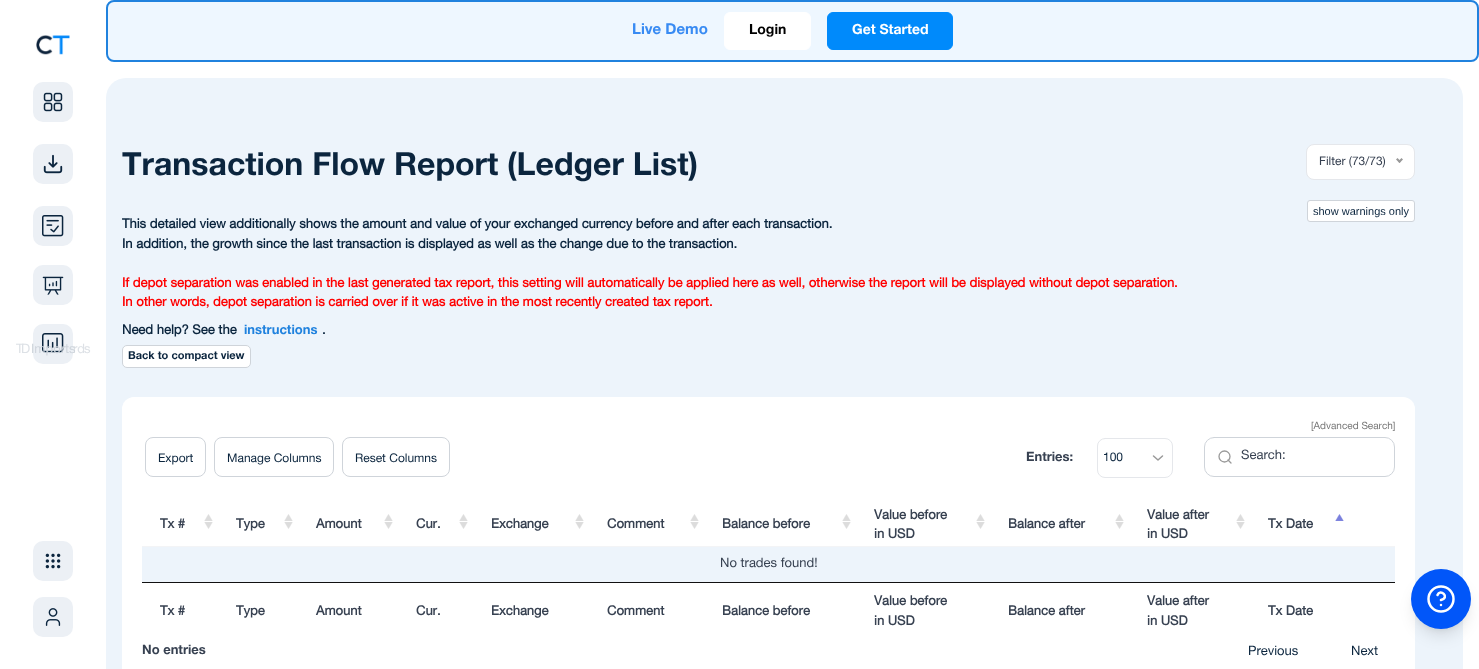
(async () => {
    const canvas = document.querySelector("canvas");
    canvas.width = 1479;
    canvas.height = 669;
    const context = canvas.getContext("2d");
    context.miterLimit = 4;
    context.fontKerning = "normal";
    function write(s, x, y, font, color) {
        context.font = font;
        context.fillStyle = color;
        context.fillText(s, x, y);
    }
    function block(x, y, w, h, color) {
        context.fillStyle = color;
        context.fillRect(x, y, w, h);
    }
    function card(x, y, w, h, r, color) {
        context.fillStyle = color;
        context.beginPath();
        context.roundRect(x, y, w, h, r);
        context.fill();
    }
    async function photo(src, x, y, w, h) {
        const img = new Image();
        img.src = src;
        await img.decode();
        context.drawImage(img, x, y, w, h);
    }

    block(0, 0, 1479, 669, "rgb(255, 255, 255)");
    await photo("media/1.png", 36, 35, 34, 20);
    card(33, 265, 40, 40, 10, "rgb(236, 240, 245)");
    await photo("media/2.png", 42, 276, 22, 19);
    card(33, 324, 40, 40, 10, "rgb(236, 240, 245)");
    await photo("media/3.png", 42, 333, 22, 20);
    card(33, 206, 40, 40, 10, "rgb(236, 240, 245)");
    await photo("media/4.png", 42, 215, 22, 22);
    write("D", 21, 353, "13px Helvetica Neue", "rgb(221, 225, 230)");
    write("T", 16, 353, "13px Helvetica Neue", "rgb(221, 225, 230)");
    write("rd", 73, 353, "13px Helvetica Neue", "rgb(221, 225, 230)");
    write("s", 84, 353, "13px Helvetica Neue", "rgb(221, 225, 230)");
    card(33, 82, 40, 40, 10, "rgb(236, 240, 245)");
    await photo("media/5.png", 43, 92, 20, 20);
    card(33, 144, 40, 40, 10, "rgb(236, 240, 245)");
    await photo("media/6.png", 43, 154, 20, 20);
    write("Imports", 31, 353, "13px Helvetica Neue", "rgb(207, 213, 220)");
    card(33, 541, 40, 40, 10, "rgb(236, 240, 245)");
    await photo("media/7.png", 45, 553, 16, 16);
    card(33, 597, 40, 40, 10, "rgb(236, 240, 245)");
    await photo("media/8.png", 45, 608, 16, 18);
    context.fillStyle = "rgb(238, 247, 255)";
    context.beginPath();
    context.roundRect(107, 1, 1371, 60, 7);
    context.fill();
    context.strokeStyle = "rgb(32, 130, 222)";
    context.lineWidth = 2;
    context.stroke();
    write("Live Demo", 632, 34, "bold 15px Helvetica Neue", "rgb(56, 139, 243)");
    context.fillStyle = "rgb(255, 255, 255)";
    context.beginPath();
    context.roundRect(724.5, 12.5, 86, 37, 5.5);
    context.fill();
    context.strokeStyle = "rgb(255, 255, 255)";
    context.lineWidth = 1;
    context.stroke();
    write("Login", 749, 34, "bold 14px Helvetica Neue", "rgb(0, 0, 0)");
    context.fillStyle = "rgb(0, 138, 251)";
    context.beginPath();
    context.roundRect(827.5, 12.5, 125, 37, 5.5);
    context.fill();
    context.strokeStyle = "rgb(0, 138, 251)";
    context.stroke();
    write("Get Started", 852, 34, "bold 14px Helvetica Neue", "rgb(255, 255, 255)");
    card(106, 78, 1357, 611, 20, "rgb(237, 244, 251)");
    write("Transaction Flow Report (Ledger List)", 122, 175, "bold 32px Helvetica Neue", "rgb(11, 37, 62)");
    context.fillStyle = "rgb(255, 255, 255)";
    context.beginPath();
    context.roundRect(1306.5, 144.5, 108, 35, 7.5);
    context.fill();
    context.strokeStyle = "rgb(229, 231, 235)";
    context.stroke();
    write("Filter (73/73)", 1319, 165, "12px Helvetica Neue", "rgb(55, 65, 81)");
    context.fillStyle = "rgb(153, 153, 153)";
    context.beginPath();
    context.moveTo(1401.5, 158);
    context.lineTo(1403, 159.5);
    context.lineTo(1399.5, 163);
    context.lineTo(1398, 161.5);
    context.closePath();
    context.fill();
    context.beginPath();
    context.moveTo(1397.5, 158);
    context.lineTo(1401, 161.5);
    context.lineTo(1399.5, 163);
    context.lineTo(1396, 159.5);
    context.closePath();
    context.fill();
    context.fillStyle = "rgb(255, 255, 255)";
    context.beginPath();
    context.roundRect(1307.5, 200.5, 107, 21, 2.5);
    context.fill();
    context.strokeStyle = "rgb(207, 212, 218)";
    context.stroke();
    write("show warnings only", 1313, 215, "11px Liberation Sans", "rgb(11, 37, 62)");
    write("This detailed view additionally shows the amount and value of your exchanged currency before and after each transaction.", 122, 228, "bold 13px 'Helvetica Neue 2'", "rgb(11, 37, 62)");
    write("In addition, the growth since the last transaction is displayed as well as the change due to the transaction.", 122, 248, "bold 13px 'Helvetica Neue 2'", "rgb(11, 37, 62)");
    write("If depot separation was enabled in the last generated tax report, this setting will automatically be applied here as well, otherwise the report will be displayed without depot separation.", 122, 287, "bold 13px 'Helvetica Neue 2'", "rgb(255, 0, 0)");
    write("In other words, depot separation is carried over if it was active in the most recently created tax report.", 122, 306, "bold 13px 'Helvetica Neue 2'", "rgb(255, 0, 0)");
    write("Need help? See the", 122, 334, "bold 13px 'Helvetica Neue 2'", "rgb(11, 37, 62)");
    write("instructions", 244, 334, "bold 13px Helvetica Neue", "rgb(32, 130, 222)");
    write(".", 322, 334, "bold 13px 'Helvetica Neue 2'", "rgb(11, 37, 62)");
    context.fillStyle = "rgb(255, 255, 255)";
    context.beginPath();
    context.roundRect(122.5, 345.5, 128, 22, 4.5);
    context.fill();
    context.stroke();
    write("Back to compact view", 128, 359, "bold 11px Helvetica Neue", "rgb(11, 37, 62)");
    card(122, 397, 1293, 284, 12, "rgb(255, 255, 255)");
    write("[Advanced Search]", 1311, 429, "10px Helvetica Neue", "rgb(119, 119, 119)");
    context.beginPath();
    context.roundRect(145.5, 437.5, 60, 39, 7.5);
    context.stroke();
    write("Export", 158, 462, "12px Helvetica Neue", "rgb(11, 37, 62)");
    context.beginPath();
    context.roundRect(214.5, 437.5, 119, 39, 7.5);
    context.stroke();
    write("Manage Columns", 227, 462, "12px Helvetica Neue", "rgb(11, 37, 62)");
    context.beginPath();
    context.roundRect(342.5, 437.5, 107, 39, 7.5);
    context.stroke();
    write("Reset Columns", 355, 462, "12px Helvetica Neue", "rgb(11, 37, 62)");
    write("Entries:", 1026, 461, "bold 13px Helvetica Neue", "rgb(55, 65, 81)");
    context.beginPath();
    context.moveTo(1153.5, 456);
    context.lineTo(1158, 460);
    context.lineTo(1162.5, 456);
    context.strokeStyle = "rgb(153, 153, 153)";
    context.lineWidth = 1.5;
    context.lineCap = "round";
    context.lineJoin = "round";
    context.stroke();
    context.beginPath();
    context.roundRect(1097.5, 438.5, 75, 39, 7.5);
    context.strokeStyle = "rgb(229, 231, 235)";
    context.lineWidth = 1;
    context.lineJoin = "miter";
    context.stroke();
    write("100", 1103, 461, "12px Helvetica Neue", "rgb(11, 37, 62)");
    context.beginPath();
    context.arc(1224.5, 456.5, 5.5, 0, Math.PI * 2);
    context.strokeStyle = "rgb(153, 153, 153)";
    context.lineWidth = 1.3;
    context.stroke();
    context.beginPath();
    context.moveTo(1231, 463);
    context.lineTo(1228, 460);
    context.lineJoin = "round";
    context.stroke();
    context.beginPath();
    context.roundRect(1204.5, 437.5, 190, 39, 9.5);
    context.strokeStyle = "rgb(207, 212, 218)";
    context.lineWidth = 1;
    context.lineJoin = "miter";
    context.stroke();
    write("Search:", 1241, 459, "13px Helvetica Neue", "rgb(55, 65, 81)");
    await photo("media/9.png", 204, 514, 9, 15);
    write("Tx #", 160, 528, "bold 13px 'Helvetica Neue 2'", "rgb(55, 65, 81)");
    await photo("media/9.png", 284, 514, 9, 15);
    write("Type", 236, 528, "bold 13px 'Helvetica Neue 2'", "rgb(55, 65, 81)");
    await photo("media/9.png", 384, 514, 9, 15);
    write("Amount", 316, 528, "bold 13px 'Helvetica Neue 2'", "rgb(55, 65, 81)");
    await photo("media/9.png", 459, 514, 9, 15);
    write("Cur.", 416, 528, "bold 13px 'Helvetica Neue 2'", "rgb(55, 65, 81)");
    await photo("media/9.png", 575, 514, 9, 15);
    write("Exchange", 491, 528, "bold 13px 'Helvetica Neue 2'", "rgb(55, 65, 81)");
    await photo("media/9.png", 690, 514, 9, 15);
    write("Comment", 607, 528, "bold 13px 'Helvetica Neue 2'", "rgb(55, 65, 81)");
    await photo("media/9.png", 842, 514, 9, 15);
    write("Balance before", 722, 528, "bold 13px 'Helvetica Neue 2'", "rgb(55, 65, 81)");
    await photo("media/9.png", 976, 514, 9, 15);
    write("Value before", 874, 519, "bold 13px 'Helvetica Neue 2'", "rgb(55, 65, 81)");
    write("in USD", 874, 538, "bold 13px 'Helvetica Neue 2'", "rgb(55, 65, 81)");
    await photo("media/9.png", 1115, 514, 9, 15);
    write("Balance after", 1008, 528, "bold 13px 'Helvetica Neue 2'", "rgb(55, 65, 81)");
    await photo("media/9.png", 1236, 514, 9, 15);
    write("Value after", 1147, 519, "bold 13px 'Helvetica Neue 2'", "rgb(55, 65, 81)");
    write("in USD", 1147, 538, "bold 13px 'Helvetica Neue 2'", "rgb(55, 65, 81)");
    await photo("media/10.png", 1335, 514, 9, 7);
    write("Tx Date", 1268, 528, "bold 13px 'Helvetica Neue 2'", "rgb(55, 65, 81)");
    block(142, 547, 1253, 35, "rgb(237, 244, 251)");
    block(142, 546, 1253, 1, "rgb(243, 244, 246)");
    write("No trades found!", 720, 567, "13px Helvetica Neue", "rgb(55, 65, 81)");
    block(142, 582, 1253, 1, "rgb(17, 17, 17)");
    write("Tx #", 160, 615, "bold 13px 'Helvetica Neue 2'", "rgb(55, 65, 81)");
    write("Type", 236, 615, "bold 13px 'Helvetica Neue 2'", "rgb(55, 65, 81)");
    write("Amount", 316, 615, "bold 13px 'Helvetica Neue 2'", "rgb(55, 65, 81)");
    write("Cur.", 416, 615, "bold 13px 'Helvetica Neue 2'", "rgb(55, 65, 81)");
    write("Exchange", 491, 615, "bold 13px 'Helvetica Neue 2'", "rgb(55, 65, 81)");
    write("Comment", 607, 615, "bold 13px 'Helvetica Neue 2'", "rgb(55, 65, 81)");
    write("Balance before", 722, 615, "bold 13px 'Helvetica Neue 2'", "rgb(55, 65, 81)");
    write("Value before", 874, 605, "bold 13px 'Helvetica Neue 2'", "rgb(55, 65, 81)");
    write("in USD", 874, 625, "bold 13px 'Helvetica Neue 2'", "rgb(55, 65, 81)");
    write("Balance after", 1008, 615, "bold 13px 'Helvetica Neue 2'", "rgb(55, 65, 81)");
    write("Value after", 1147, 605, "bold 13px 'Helvetica Neue 2'", "rgb(55, 65, 81)");
    write("in USD", 1147, 625, "bold 13px 'Helvetica Neue 2'", "rgb(55, 65, 81)");
    write("Tx Date", 1268, 615, "bold 13px 'Helvetica Neue 2'", "rgb(55, 65, 81)");
    write("No entries", 142, 654, "bold 13px Helvetica Neue", "rgb(55, 65, 81)");
    write("Previous", 1248, 655, "13px Helvetica Neue", "rgb(11, 37, 62)");
    write("Next", 1351, 655, "13px Helvetica Neue", "rgb(11, 37, 62)");
    context.fillStyle = "rgba(0, 0, 0, 0.1)";
    context.filter = "blur(3px)";
    context.beginPath();
    context.roundRect(1415, 577, 52, 52, 26);
    context.fill();
    context.filter = "none";
    context.filter = "blur(7.5px)";
    context.beginPath();
    context.roundRect(1414, 582, 54, 54, 27);
    context.fill();
    context.filter = "none";
    context.fillStyle = "rgb(1, 86, 249)";
    context.beginPath();
    context.arc(1441, 599, 30, 0, Math.PI * 2);
    context.fill();
    context.beginPath();
    context.arc(1441, 599, 12.5, 0, Math.PI * 2);
    context.strokeStyle = "rgb(255, 255, 255)";
    context.lineWidth = 2.5;
    context.stroke();
    context.beginPath();
    context.moveTo(1437.5, 595);
    context.bezierCurveTo(1440, 588.5, 1450.5, 597, 1441, 600);
    context.moveTo(1441, 605);
    context.lineTo(1441, 605);
    context.lineJoin = "round";
    context.stroke();
})();
